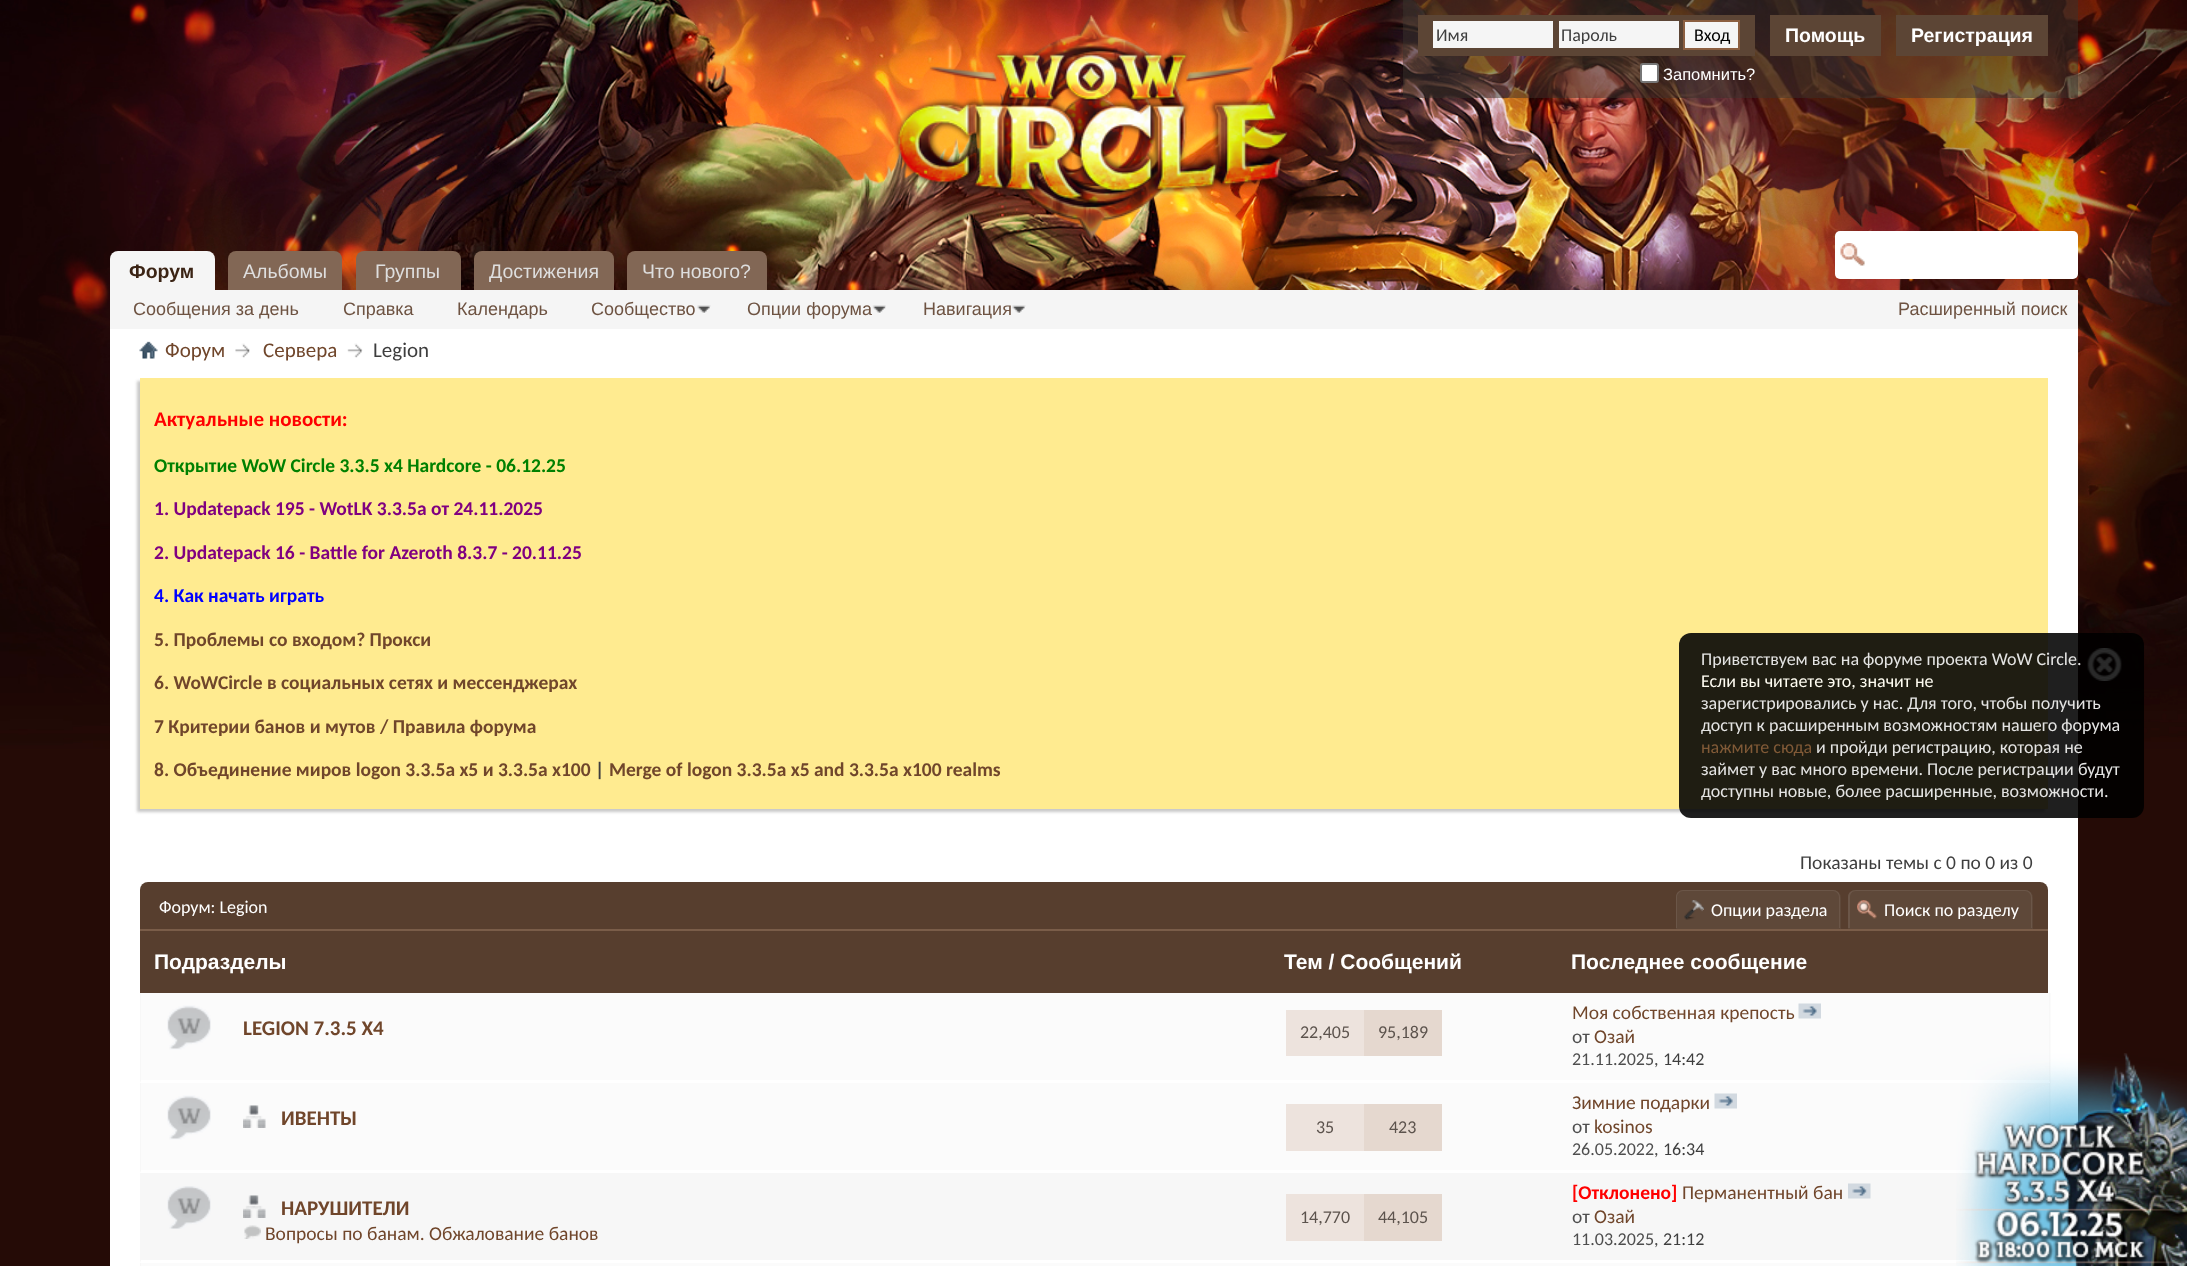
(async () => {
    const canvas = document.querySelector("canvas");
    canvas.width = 2187;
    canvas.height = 1266;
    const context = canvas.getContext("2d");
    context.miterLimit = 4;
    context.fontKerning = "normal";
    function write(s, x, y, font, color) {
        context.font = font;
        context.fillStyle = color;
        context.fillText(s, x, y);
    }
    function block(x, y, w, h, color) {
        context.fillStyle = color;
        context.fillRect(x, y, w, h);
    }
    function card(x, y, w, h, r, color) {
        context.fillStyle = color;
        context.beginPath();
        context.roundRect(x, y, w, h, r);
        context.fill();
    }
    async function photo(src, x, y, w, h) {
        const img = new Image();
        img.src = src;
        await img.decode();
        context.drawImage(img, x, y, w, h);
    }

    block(0, 0, 2187, 1266, "rgb(37, 11, 6)");
    await photo("media/1.png", 0, 0, 2187, 749);
    await photo("media/2.png", 894, 15, 396, 225);
    block(1403, 0, 675, 98, "rgba(56, 49, 44, 0.5)");
    block(1418, 15, 337, 41, "rgb(92, 69, 53)");
    block(1433, 21, 120, 27, "rgb(245, 245, 245)");
    write("Имя", 1436, 41, "18px Carlito", "rgb(62, 62, 62)");
    block(1559, 21, 120, 27, "rgb(245, 245, 245)");
    write("Пароль", 1561, 41, "18px Carlito", "rgb(62, 62, 62)");
    context.fillStyle = "rgb(245, 245, 245)";
    context.beginPath();
    context.rect(1684, 21, 55, 28);
    context.fill();
    context.strokeStyle = "rgb(140, 95, 65)";
    context.lineWidth = 2;
    context.stroke();
    write("Вход", 1694, 41, "18px Carlito", "rgb(0, 0, 0)");
    context.fillStyle = "rgb(255, 255, 255)";
    context.beginPath();
    context.roundRect(1641, 64, 17, 18, 2);
    context.fill();
    context.strokeStyle = "rgb(118, 118, 118)";
    context.stroke();
    write("Запомнить?", 1663, 80, "16.5px Liberation Sans", "rgb(255, 255, 255)");
    block(1770, 15, 111, 41, "rgb(92, 69, 53)");
    write("Помощь", 1785, 42, "bold 19.5px Liberation Sans", "rgb(255, 255, 255)");
    block(1896, 15, 152, 41, "rgb(92, 69, 53)");
    write("Регистрация", 1911, 42, "bold 19.5px Liberation Sans", "rgb(255, 255, 255)");
    context.fillStyle = "rgb(130, 103, 85)";
    context.beginPath();
    context.roundRect(228, 251, 114, 39, [8, 8, 0, 0]);
    context.fill();
    write("Альбомы", 243, 278, "19.5px Liberation Sans", "rgb(222, 222, 222)");
    context.fillStyle = "rgb(245, 245, 245)";
    context.beginPath();
    context.roundRect(110, 251, 105, 39, [8, 8, 0, 0]);
    context.fill();
    write("Форум", 129, 278, "bold 19.5px Liberation Sans", "rgb(59, 36, 21)");
    block(110, 290, 1968, 39, "rgb(245, 245, 245)");
    write("Сообщения за день", 133, 315, "18px Liberation Sans", "rgb(110, 83, 66)");
    write("Справка", 343, 315, "18px Liberation Sans", "rgb(110, 83, 66)");
    write("Календарь", 457, 315, "18px Liberation Sans", "rgb(110, 83, 66)");
    write("Сообщество", 591, 315, "18px Liberation Sans", "rgb(110, 83, 66)");
    await photo("media/3.png", 697, 305, 14, 9);
    write("Опции форума", 747, 315, "18px Liberation Sans", "rgb(110, 83, 66)");
    await photo("media/4.png", 872, 305, 14, 9);
    write("Навигация", 923, 315, "18px Liberation Sans", "rgb(110, 83, 66)");
    await photo("media/5.png", 1012, 305, 14, 9);
    context.fillStyle = "rgb(130, 103, 85)";
    context.beginPath();
    context.roundRect(356, 251, 105, 39, [8, 8, 0, 0]);
    context.fill();
    write("Группы", 375, 278, "19.5px Liberation Sans", "rgb(222, 222, 222)");
    context.fillStyle = "rgb(130, 103, 85)";
    context.beginPath();
    context.roundRect(474, 251, 140, 39, [8, 8, 0, 0]);
    context.fill();
    write("Достижения", 489, 278, "19.5px Liberation Sans", "rgb(222, 222, 222)");
    context.fillStyle = "rgb(130, 103, 85)";
    context.beginPath();
    context.roundRect(627, 251, 140, 39, [8, 8, 0, 0]);
    context.fill();
    write("Что нового?", 642, 278, "19.5px Liberation Sans", "rgb(222, 222, 222)");
    card(1835, 231, 243, 48, 5, "rgb(255, 255, 255)");
    await photo("media/6.png", 1840, 243, 25, 23);
    write("Расширенный поиск", 1898, 315, "18px Liberation Sans", "rgb(110, 83, 66)");
    block(110, 329, 1968, 937, "rgb(255, 255, 255)");
    await photo("media/7.png", 139, 341, 19, 18);
    await photo("media/8.png", 235, 343, 15, 15);
    write("Форум", 165, 357, "21px Carlito", "rgb(112, 70, 43)");
    await photo("media/9.png", 347, 343, 16, 15);
    write("Сервера", 263, 357, "21px Carlito", "rgb(112, 70, 43)");
    write("Legion", 373, 357, "21px Carlito", "rgb(62, 62, 62)");
    context.fillStyle = "rgb(200, 200, 200)";
    context.filter = "blur(1.5px)";
    context.beginPath();
    context.rect(137, 381, 1908, 431);
    context.fill();
    context.filter = "none";
    block(140, 378, 1908, 431, "rgb(255, 235, 144)");
    write("Актуальные новости:", 154, 426, "bold 21px Carlito", "rgb(255, 0, 0)");
    write("Открытие WoW Circle 3.3.5 x4 Hardcore - 06.12.25", 154, 472, "bold 19.5px Carlito", "rgb(0, 128, 0)");
    write("1. Updatepack 195 - WotLK 3.3.5a от 24.11.2025", 154, 515, "bold 19.5px Carlito", "rgb(128, 0, 128)");
    write("2. Updatepack 16 - Battle for Azeroth 8.3.7 - 20.11.25", 154, 559, "bold 19.5px Carlito", "rgb(128, 0, 128)");
    write("4. Как начать играть", 154, 602, "bold 19.5px Carlito", "rgb(0, 0, 255)");
    write("5. Проблемы со входом? Прокси", 154, 646, "bold 19.5px Carlito", "rgb(112, 70, 43)");
    write("6. WoWCircle в социальных сетях и мессенджерах", 154, 689, "bold 19.5px Carlito", "rgb(112, 70, 43)");
    write("7 Критерии банов и мутов / Правила форума", 154, 733, "bold 19.5px Carlito", "rgb(112, 70, 43)");
    write("8. Объединение миров logon 3.3.5a х5 и 3.3.5a x100", 154, 776, "bold 19.5px Carlito", "rgb(112, 70, 43)");
    write("|", 595, 776, "bold 19.5px Carlito", "rgb(62, 62, 62)");
    write("Merge of logon 3.3.5a х5 and 3.3.5a x100 realms", 609, 776, "bold 19.5px Carlito", "rgb(112, 70, 43)");
    write("Показаны темы с 0 по 0 из 0", 1800, 869, "19.5px Carlito", "rgb(62, 62, 62)");
    context.fillStyle = "rgb(87, 62, 46)";
    context.beginPath();
    context.roundRect(140, 882, 1908, 47, [8, 8, 0, 0]);
    context.fill();
    write("Форум: Legion", 159, 913, "18px Carlito", "rgb(255, 255, 255)");
    context.fillStyle = "rgb(94, 72, 57)";
    context.beginPath();
    context.roundRect(1676, 890, 165, 39, [8, 8, 0, 0]);
    context.fill();
    await photo("media/10.png", 1684, 900, 20, 20);
    context.fillStyle = "rgb(107, 86, 72)";
    context.beginPath();
    context.moveTo(1683, 890);
    context.lineTo(1833, 890);
    context.bezierCurveTo(1837, 890, 1840, 893, 1840, 897);
    context.lineTo(1840, 928);
    context.lineTo(1676, 928);
    context.lineTo(1676, 897);
    context.bezierCurveTo(1676, 893, 1679, 890, 1683, 890);
    context.closePath();
    context.moveTo(1683, 891);
    context.lineTo(1833, 891);
    context.bezierCurveTo(1836, 891, 1839, 894, 1839, 897);
    context.lineTo(1839, 928);
    context.lineTo(1677, 928);
    context.lineTo(1677, 897);
    context.bezierCurveTo(1677, 894, 1680, 891, 1683, 891);
    context.closePath();
    context.fill("evenodd");
    write("Опции раздела", 1711, 916, "18px Carlito", "rgb(255, 255, 255)");
    context.fillStyle = "rgb(94, 72, 57)";
    context.beginPath();
    context.roundRect(1848, 890, 185, 39, [8, 8, 0, 0]);
    context.fill();
    await photo("media/11.png", 1857, 900, 20, 19);
    context.fillStyle = "rgb(107, 86, 72)";
    context.beginPath();
    context.moveTo(1856, 890);
    context.lineTo(2025, 890);
    context.bezierCurveTo(2029, 890, 2032, 893, 2032, 897);
    context.lineTo(2032, 928);
    context.lineTo(1848, 928);
    context.lineTo(1848, 897);
    context.bezierCurveTo(1848, 893, 1851, 890, 1856, 890);
    context.closePath();
    context.moveTo(1856, 891);
    context.lineTo(2025, 891);
    context.bezierCurveTo(2028, 891, 2031, 894, 2031, 897);
    context.lineTo(2031, 928);
    context.lineTo(1850, 928);
    context.lineTo(1850, 897);
    context.bezierCurveTo(1850, 894, 1852, 891, 1856, 891);
    context.closePath();
    context.fill("evenodd");
    write("Поиск по разделу", 1884, 916, "18px Carlito", "rgb(255, 255, 255)");
    block(140, 931, 1908, 62, "rgb(87, 62, 46)");
    block(140, 929, 1908, 2, "rgb(122, 93, 73)");
    write("Подразделы", 154, 969, "bold 21px Liberation Sans", "rgb(255, 255, 255)");
    write("Тем / Сообщений", 1284, 969, "bold 21px Liberation Sans", "rgb(255, 255, 255)");
    write("Последнее сообщение", 1571, 969, "bold 21px Liberation Sans", "rgb(255, 255, 255)");
    block(140, 993, 1911, 180, "rgb(251, 251, 251)");
    context.fillStyle = "rgb(247, 247, 247)";
    context.beginPath();
    context.moveTo(2050, 993);
    context.lineTo(2050, 1083);
    context.lineTo(2049, 1080);
    context.lineTo(2049, 993);
    context.closePath();
    context.fill();
    context.fillStyle = "rgb(255, 255, 255)";
    context.beginPath();
    context.moveTo(2050, 1083);
    context.lineTo(140, 1083);
    context.lineTo(141, 1080);
    context.lineTo(2049, 1080);
    context.closePath();
    context.fill();
    context.fillStyle = "rgb(247, 247, 247)";
    context.beginPath();
    context.moveTo(140, 1083);
    context.lineTo(140, 993);
    context.lineTo(141, 993);
    context.lineTo(141, 1080);
    context.closePath();
    context.fill();
    await photo("media/12.png", 167, 1005, 44, 45);
    write("LEGION 7.3.5 Х4", 243, 1035, "bold 21px Carlito", "rgb(112, 70, 43)");
    block(1286, 1010, 78, 46, "rgb(237, 227, 221)");
    write("22,405", 1300, 1038, "18px Carlito", "rgb(92, 83, 77)");
    block(1364, 1010, 78, 46, "rgb(229, 216, 207)");
    write("95,189", 1378, 1038, "18px Carlito", "rgb(92, 83, 77)");
    write("Моя собственная крепость", 1572, 1019, "19.5px Carlito", "rgb(112, 70, 43)");
    await photo("media/13.png", 1798, 1003, 23, 16);
    write("от", 1572, 1043, "19.5px Carlito", "rgb(78, 78, 78)");
    write("Озай", 1594, 1043, "19.5px Carlito", "rgb(112, 70, 43)");
    write("21.11.2025,", 1572, 1065, "18px Carlito", "rgb(78, 78, 78)");
    write("14:42", 1663, 1065, "18px Carlito", "rgb(62, 62, 62)");
    context.fillStyle = "rgb(247, 247, 247)";
    context.beginPath();
    context.moveTo(2050, 1083);
    context.lineTo(2050, 1173);
    context.lineTo(2049, 1170);
    context.lineTo(2049, 1083);
    context.closePath();
    context.fill();
    context.fillStyle = "rgb(255, 255, 255)";
    context.beginPath();
    context.moveTo(2050, 1173);
    context.lineTo(140, 1173);
    context.lineTo(141, 1170);
    context.lineTo(2049, 1170);
    context.closePath();
    context.fill();
    context.fillStyle = "rgb(247, 247, 247)";
    context.beginPath();
    context.moveTo(140, 1173);
    context.lineTo(140, 1083);
    context.lineTo(141, 1083);
    context.lineTo(141, 1170);
    context.closePath();
    context.fill();
    await photo("media/12.png", 167, 1095, 44, 45);
    await photo("media/14.png", 243, 1105, 23, 23);
    write("ИВЕНТЫ", 281, 1125, "bold 21px Carlito", "rgb(112, 70, 43)");
    write("Зимние подарки", 1572, 1109, "19.5px Carlito", "rgb(112, 70, 43)");
    await photo("media/13.png", 1714, 1093, 23, 16);
    write("от", 1572, 1133, "19.5px Carlito", "rgb(78, 78, 78)");
    write("kosinos", 1594, 1133, "19.5px Carlito", "rgb(112, 70, 43)");
    write("26.05.2022,", 1572, 1155, "18px Carlito", "rgb(78, 78, 78)");
    write("16:34", 1663, 1155, "18px Carlito", "rgb(62, 62, 62)");
    block(1286, 1104, 78, 47, "rgb(237, 227, 221)");
    write("35", 1316, 1133, "18px Carlito", "rgb(92, 83, 77)");
    block(1364, 1104, 78, 47, "rgb(229, 216, 207)");
    write("423", 1389, 1133, "18px Carlito", "rgb(92, 83, 77)");
    block(140, 1173, 1911, 90, "rgb(247, 247, 247)");
    context.fillStyle = "rgb(255, 255, 255)";
    context.beginPath();
    context.moveTo(2050, 1263);
    context.lineTo(140, 1263);
    context.lineTo(141, 1260);
    context.lineTo(2049, 1260);
    context.closePath();
    context.fill();
    await photo("media/15.png", 167, 1186, 44, 43);
    await photo("media/16.png", 243, 1195, 23, 23);
    write("НАРУШИТЕЛИ", 281, 1215, "bold 21px Carlito", "rgb(112, 70, 43)");
    await photo("media/17.png", 244, 1225, 17, 14);
    write("Вопросы по банам. Обжалование банов", 265, 1240, "19.5px Carlito", "rgb(112, 70, 43)");
    block(1286, 1194, 78, 47, "rgb(237, 227, 221)");
    write("14,770", 1300, 1223, "18px Carlito", "rgb(92, 83, 77)");
    block(1364, 1194, 78, 47, "rgb(229, 216, 207)");
    write("44,105", 1378, 1223, "18px Carlito", "rgb(92, 83, 77)");
    write("[Отклонено]", 1572, 1199, "bold 19.5px Carlito", "rgb(255, 0, 0)");
    write("Перманентный бан", 1682, 1199, "19.5px Carlito", "rgb(112, 70, 43)");
    await photo("media/18.png", 1848, 1183, 23, 16);
    write("от", 1572, 1223, "19.5px Carlito", "rgb(78, 78, 78)");
    write("Озай", 1594, 1223, "19.5px Carlito", "rgb(112, 70, 43)");
    write("11.03.2025,", 1572, 1245, "18px Carlito", "rgb(78, 78, 78)");
    write("21:12", 1663, 1245, "18px Carlito", "rgb(62, 62, 62)");
    block(140, 1263, 1911, 3, "rgb(251, 251, 251)");
    context.fillStyle = "rgb(247, 247, 247)";
    context.beginPath();
    context.moveTo(2050, 1263);
    context.lineTo(2050, 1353);
    context.lineTo(2049, 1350);
    context.lineTo(2049, 1263);
    context.closePath();
    context.fill();
    context.beginPath();
    context.moveTo(140, 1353);
    context.lineTo(140, 1263);
    context.lineTo(141, 1263);
    context.lineTo(141, 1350);
    context.closePath();
    context.fill();
    card(1679, 633, 465, 185, 12, "rgba(0, 0, 0, 0.88)");
    write("Приветствуем вас на форуме проекта WoW Circle.", 1701, 665, "18px Carlito", "rgb(228, 228, 227)");
    await photo("media/19.png", 2087, 648, 35, 33);
    write("Если вы читаете это, значит не", 1701, 687, "18px Carlito", "rgb(255, 253, 242)");
    write("зарегистрировались у нас. Для того, чтобы получить", 1701, 709, "18px Carlito", "rgb(228, 228, 227)");
    write("доступ к расширенным возможностям нашего форума", 1701, 731, "18px Carlito", "rgb(228, 228, 227)");
    write("нажмите сюда", 1701, 753, "18px Carlito", "rgb(129, 90, 55)");
    write("и пройди регистрацию, которая не", 1816, 753, "18px Carlito", "rgb(228, 228, 227)");
    write("займет у вас много времени. После регистрации будут", 1701, 775, "18px Carlito", "rgb(228, 228, 227)");
    write("доступны новые, более расширенные, возможности.", 1701, 797, "18px Carlito", "rgb(228, 228, 227)");
    await photo("media/20.png", 1956, 1053, 231, 213);
})();
